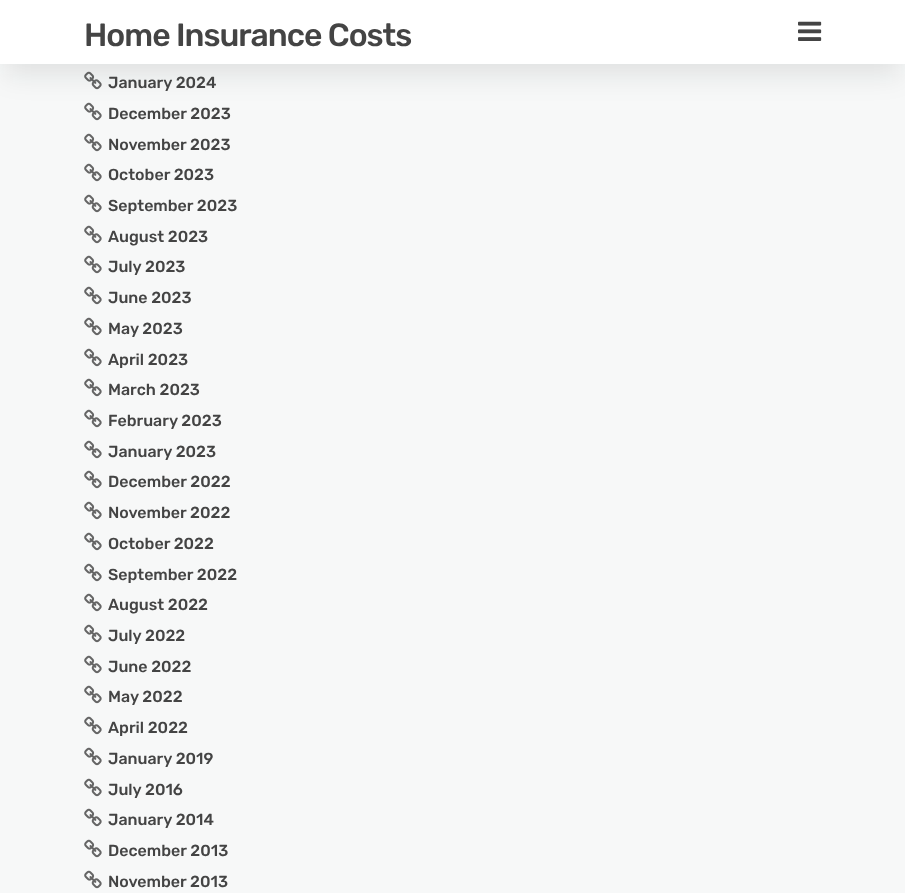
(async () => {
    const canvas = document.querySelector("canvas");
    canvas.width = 905;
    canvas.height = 893;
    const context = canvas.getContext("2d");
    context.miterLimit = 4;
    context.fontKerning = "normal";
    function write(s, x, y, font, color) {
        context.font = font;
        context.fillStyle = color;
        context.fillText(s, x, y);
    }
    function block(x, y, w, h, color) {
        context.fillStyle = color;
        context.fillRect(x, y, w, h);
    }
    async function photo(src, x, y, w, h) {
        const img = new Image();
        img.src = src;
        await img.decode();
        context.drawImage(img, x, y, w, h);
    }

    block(0, 0, 905, 893, "rgb(247, 248, 248)");
    await photo("media/2.png", 84, 71, 18, 19);
    await photo("media/2.png", 84, 102, 18, 19);
    context.fillStyle = "rgba(14, 17, 20, 0.1)";
    context.filter = "blur(14px)";
    context.beginPath();
    context.rect(4, 18, 897, 56);
    context.fill();
    context.filter = "none";
    block(0, 0, 905, 64, "rgb(255, 255, 255)");
    context.letterSpacing = "-1px";
    write("Home Insurance Costs", 84, 46, "500 32px Rubik", "rgb(68, 68, 68)");
    await photo("media/1.png", 798, 21, 24, 20);
    context.letterSpacing = "0px";
    write("January 2024", 108, 88, "500 16px Rubik", "rgb(68, 68, 68)");
    write("December 2023", 108, 119, "500 16px Rubik", "rgb(68, 68, 68)");
    await photo("media/2.png", 84, 133, 18, 19);
    write("November 2023", 108, 150, "500 16px Rubik", "rgb(68, 68, 68)");
    await photo("media/2.png", 84, 163, 18, 19);
    write("October 2023", 108, 180, "500 16px Rubik", "rgb(68, 68, 68)");
    await photo("media/2.png", 84, 194, 18, 19);
    write("September 2023", 108, 211, "500 16px Rubik", "rgb(68, 68, 68)");
    await photo("media/2.png", 84, 225, 18, 19);
    write("August 2023", 108, 242, "500 16px Rubik", "rgb(68, 68, 68)");
    await photo("media/2.png", 84, 255, 18, 19);
    write("July 2023", 108, 272, "500 16px Rubik", "rgb(68, 68, 68)");
    await photo("media/2.png", 84, 286, 18, 19);
    write("June 2023", 108, 303, "500 16px Rubik", "rgb(68, 68, 68)");
    await photo("media/2.png", 84, 317, 18, 19);
    write("May 2023", 108, 334, "500 16px Rubik", "rgb(68, 68, 68)");
    await photo("media/2.png", 84, 348, 18, 19);
    write("April 2023", 108, 365, "500 16px Rubik", "rgb(68, 68, 68)");
    await photo("media/2.png", 84, 378, 18, 19);
    write("March 2023", 108, 395, "500 16px Rubik", "rgb(68, 68, 68)");
    await photo("media/2.png", 84, 409, 18, 19);
    write("February 2023", 108, 426, "500 16px Rubik", "rgb(68, 68, 68)");
    await photo("media/2.png", 84, 440, 18, 19);
    write("January 2023", 108, 457, "500 16px Rubik", "rgb(68, 68, 68)");
    await photo("media/2.png", 84, 470, 18, 19);
    write("December 2022", 108, 487, "500 16px Rubik", "rgb(68, 68, 68)");
    await photo("media/2.png", 84, 501, 18, 19);
    write("November 2022", 108, 518, "500 16px Rubik", "rgb(68, 68, 68)");
    await photo("media/2.png", 84, 532, 18, 19);
    write("October 2022", 108, 549, "500 16px Rubik", "rgb(68, 68, 68)");
    await photo("media/2.png", 84, 563, 18, 19);
    write("September 2022", 108, 580, "500 16px Rubik", "rgb(68, 68, 68)");
    await photo("media/2.png", 84, 593, 18, 19);
    write("August 2022", 108, 610, "500 16px Rubik", "rgb(68, 68, 68)");
    await photo("media/2.png", 84, 624, 18, 19);
    write("July 2022", 108, 641, "500 16px Rubik", "rgb(68, 68, 68)");
    await photo("media/2.png", 84, 655, 18, 19);
    write("June 2022", 108, 672, "500 16px Rubik", "rgb(68, 68, 68)");
    await photo("media/2.png", 84, 685, 18, 19);
    write("May 2022", 108, 702, "500 16px Rubik", "rgb(68, 68, 68)");
    await photo("media/2.png", 84, 716, 18, 19);
    write("April 2022", 108, 733, "500 16px Rubik", "rgb(68, 68, 68)");
    await photo("media/2.png", 84, 747, 18, 19);
    write("January 2019", 108, 764, "500 16px Rubik", "rgb(68, 68, 68)");
    await photo("media/2.png", 84, 778, 18, 19);
    write("July 2016", 108, 795, "500 16px Rubik", "rgb(68, 68, 68)");
    await photo("media/2.png", 84, 808, 18, 19);
    write("January 2014", 108, 825, "500 16px Rubik", "rgb(68, 68, 68)");
    await photo("media/2.png", 84, 839, 18, 19);
    write("December 2013", 108, 856, "500 16px Rubik", "rgb(68, 68, 68)");
    await photo("media/2.png", 84, 870, 18, 19);
    write("November 2013", 108, 887, "500 16px Rubik", "rgb(68, 68, 68)");
})();
